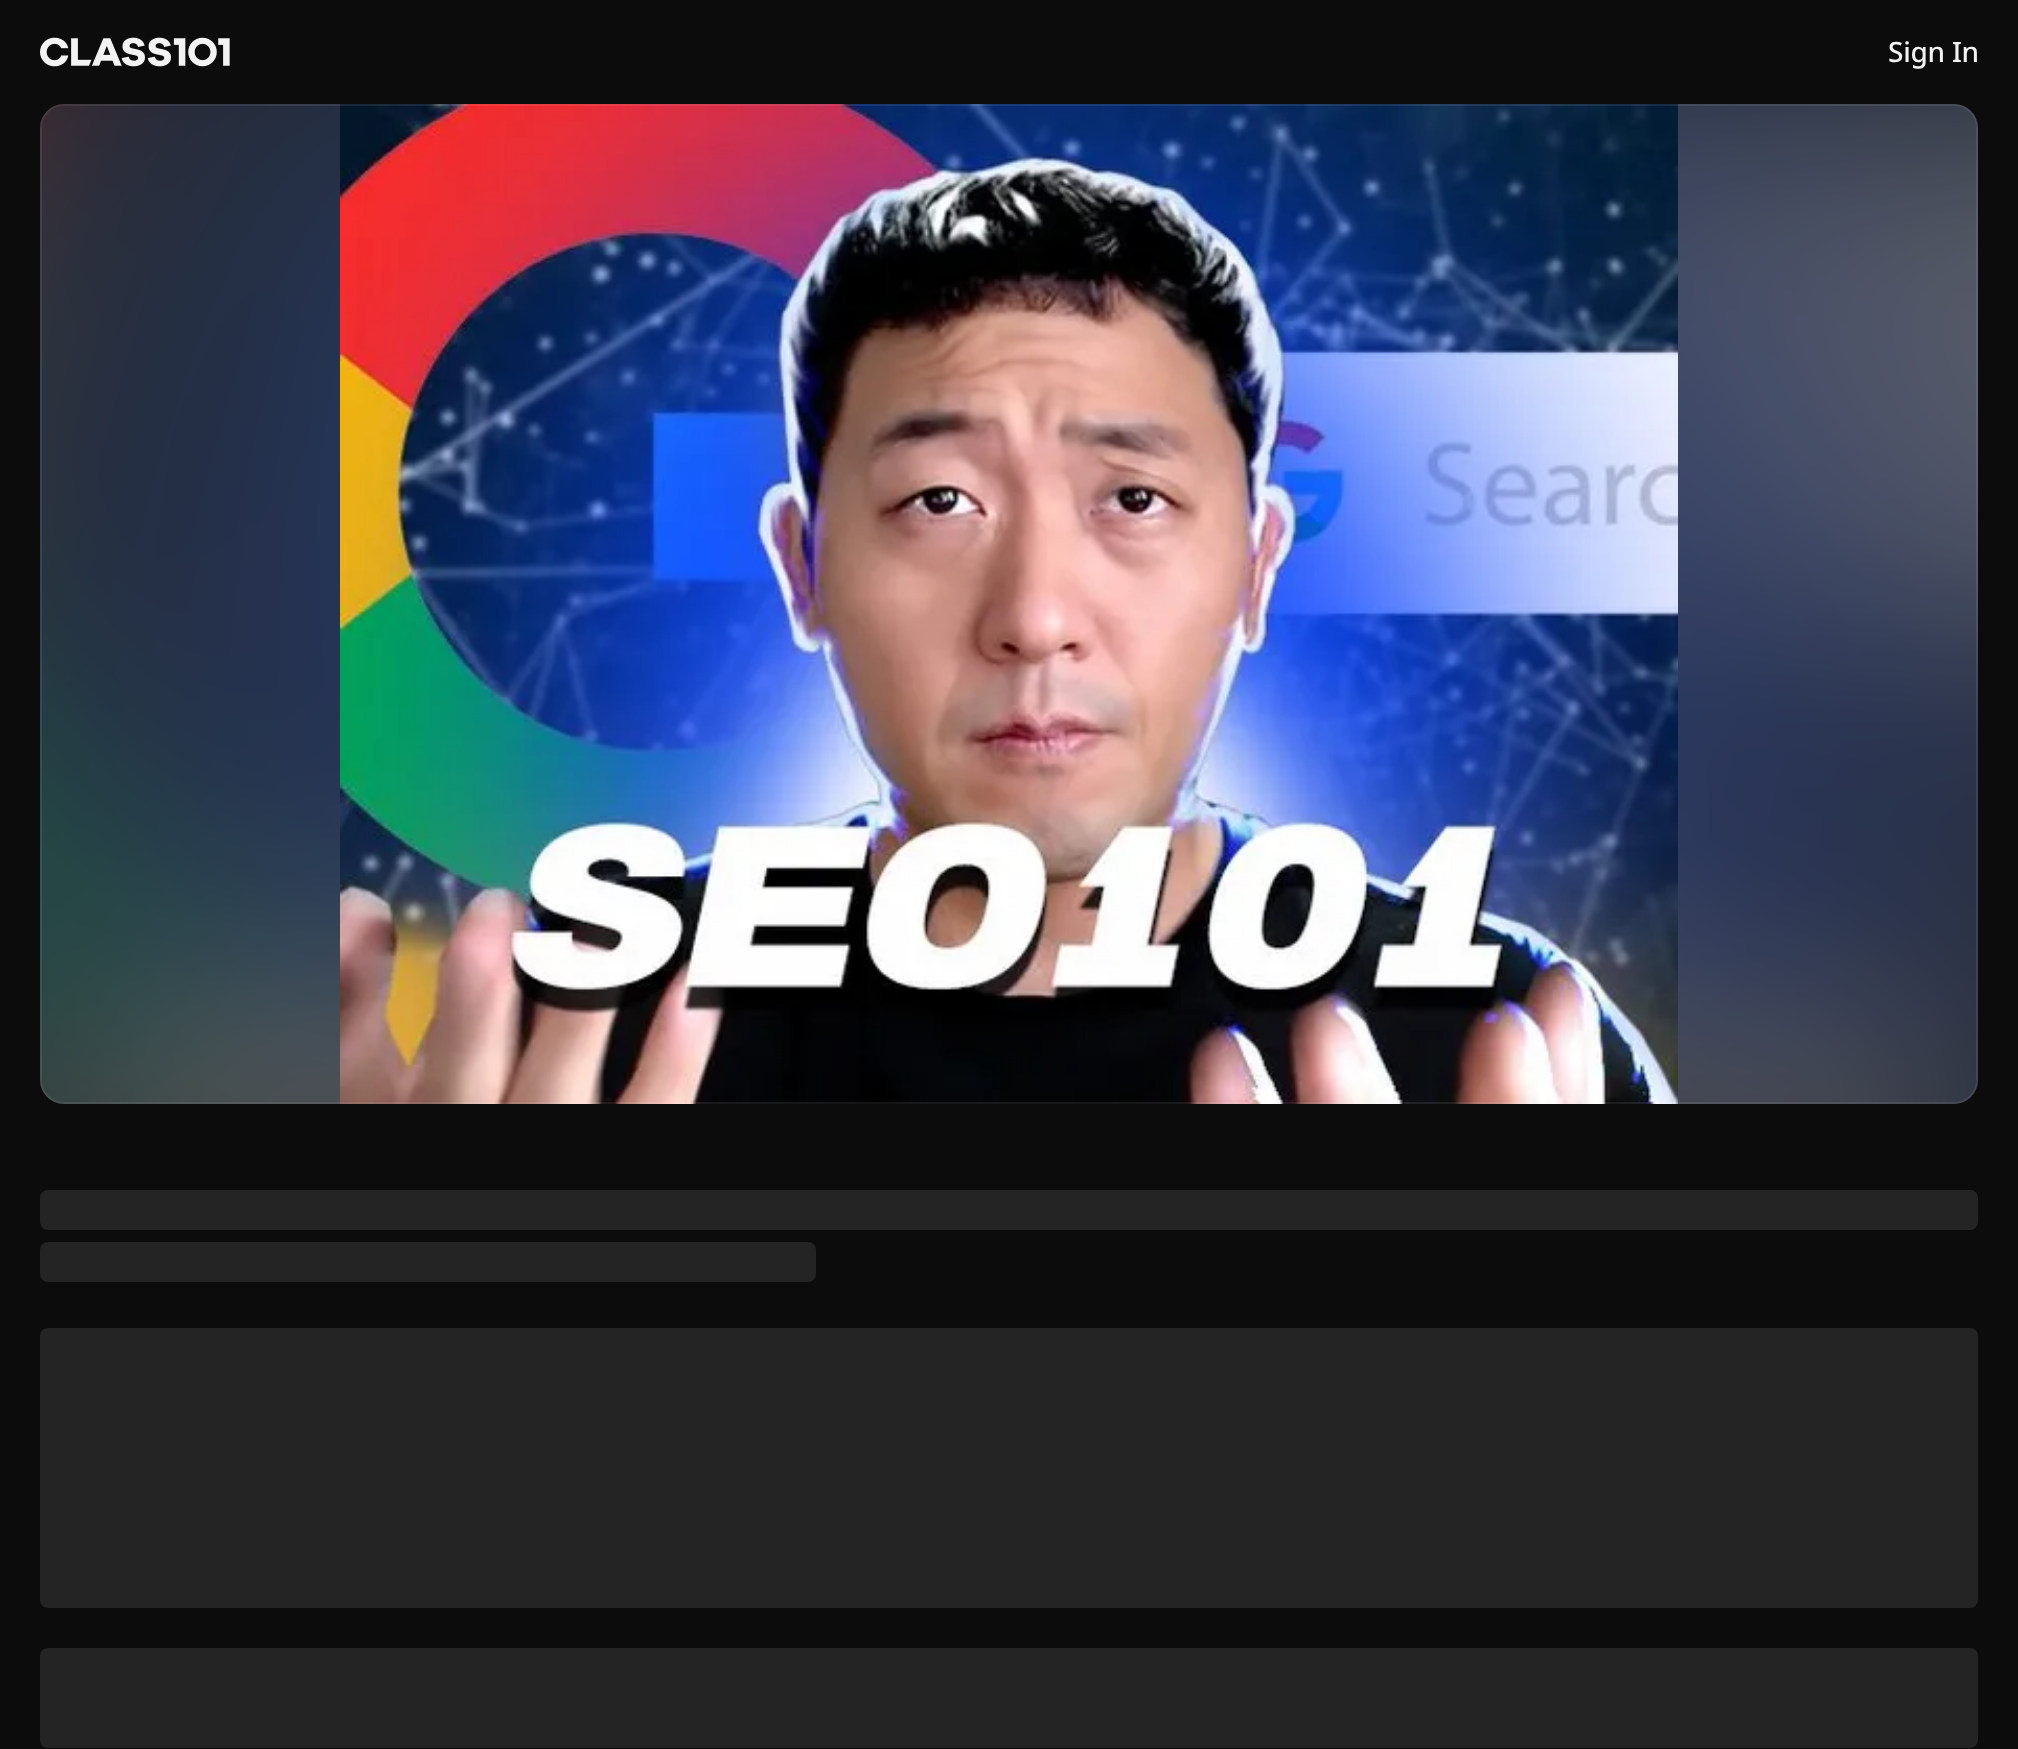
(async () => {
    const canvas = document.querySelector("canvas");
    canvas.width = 2018;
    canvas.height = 1749;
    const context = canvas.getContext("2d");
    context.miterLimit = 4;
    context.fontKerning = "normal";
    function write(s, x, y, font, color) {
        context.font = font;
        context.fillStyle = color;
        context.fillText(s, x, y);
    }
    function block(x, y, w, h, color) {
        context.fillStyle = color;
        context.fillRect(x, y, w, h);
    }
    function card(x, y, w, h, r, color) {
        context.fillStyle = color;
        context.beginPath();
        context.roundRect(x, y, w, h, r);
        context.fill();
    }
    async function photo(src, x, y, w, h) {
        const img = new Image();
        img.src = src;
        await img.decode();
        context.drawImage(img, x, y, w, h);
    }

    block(0, 0, 2018, 1749, "rgb(12, 12, 12)");
    await photo("media/1.png", 40, 37, 190, 30);
    context.letterSpacing = "-0.25px";
    write("Sign In", 1888, 62, "500 28px Noto Sans", "rgb(243, 243, 243)");
    await photo("media/2.png", 40, 104, 1938, 1000);
    card(40, 104, 1938, 1000, 24, "rgba(255, 255, 255, 0.1)");
    await photo("media/3.png", 340, 104, 1338, 1000);
    context.beginPath();
    context.roundRect(41, 105, 1936, 998, 23);
    context.strokeStyle = "rgba(255, 255, 255, 0.08)";
    context.lineWidth = 2;
    context.stroke();
    card(40, 1190, 1938, 40, 8, "rgb(36, 36, 36)");
    card(40, 1242, 776, 40, 8, "rgb(36, 36, 36)");
    card(40, 1328, 1938, 280, 8, "rgb(36, 36, 36)");
    card(40, 1648, 1938, 100, 8, "rgb(36, 36, 36)");
})();
